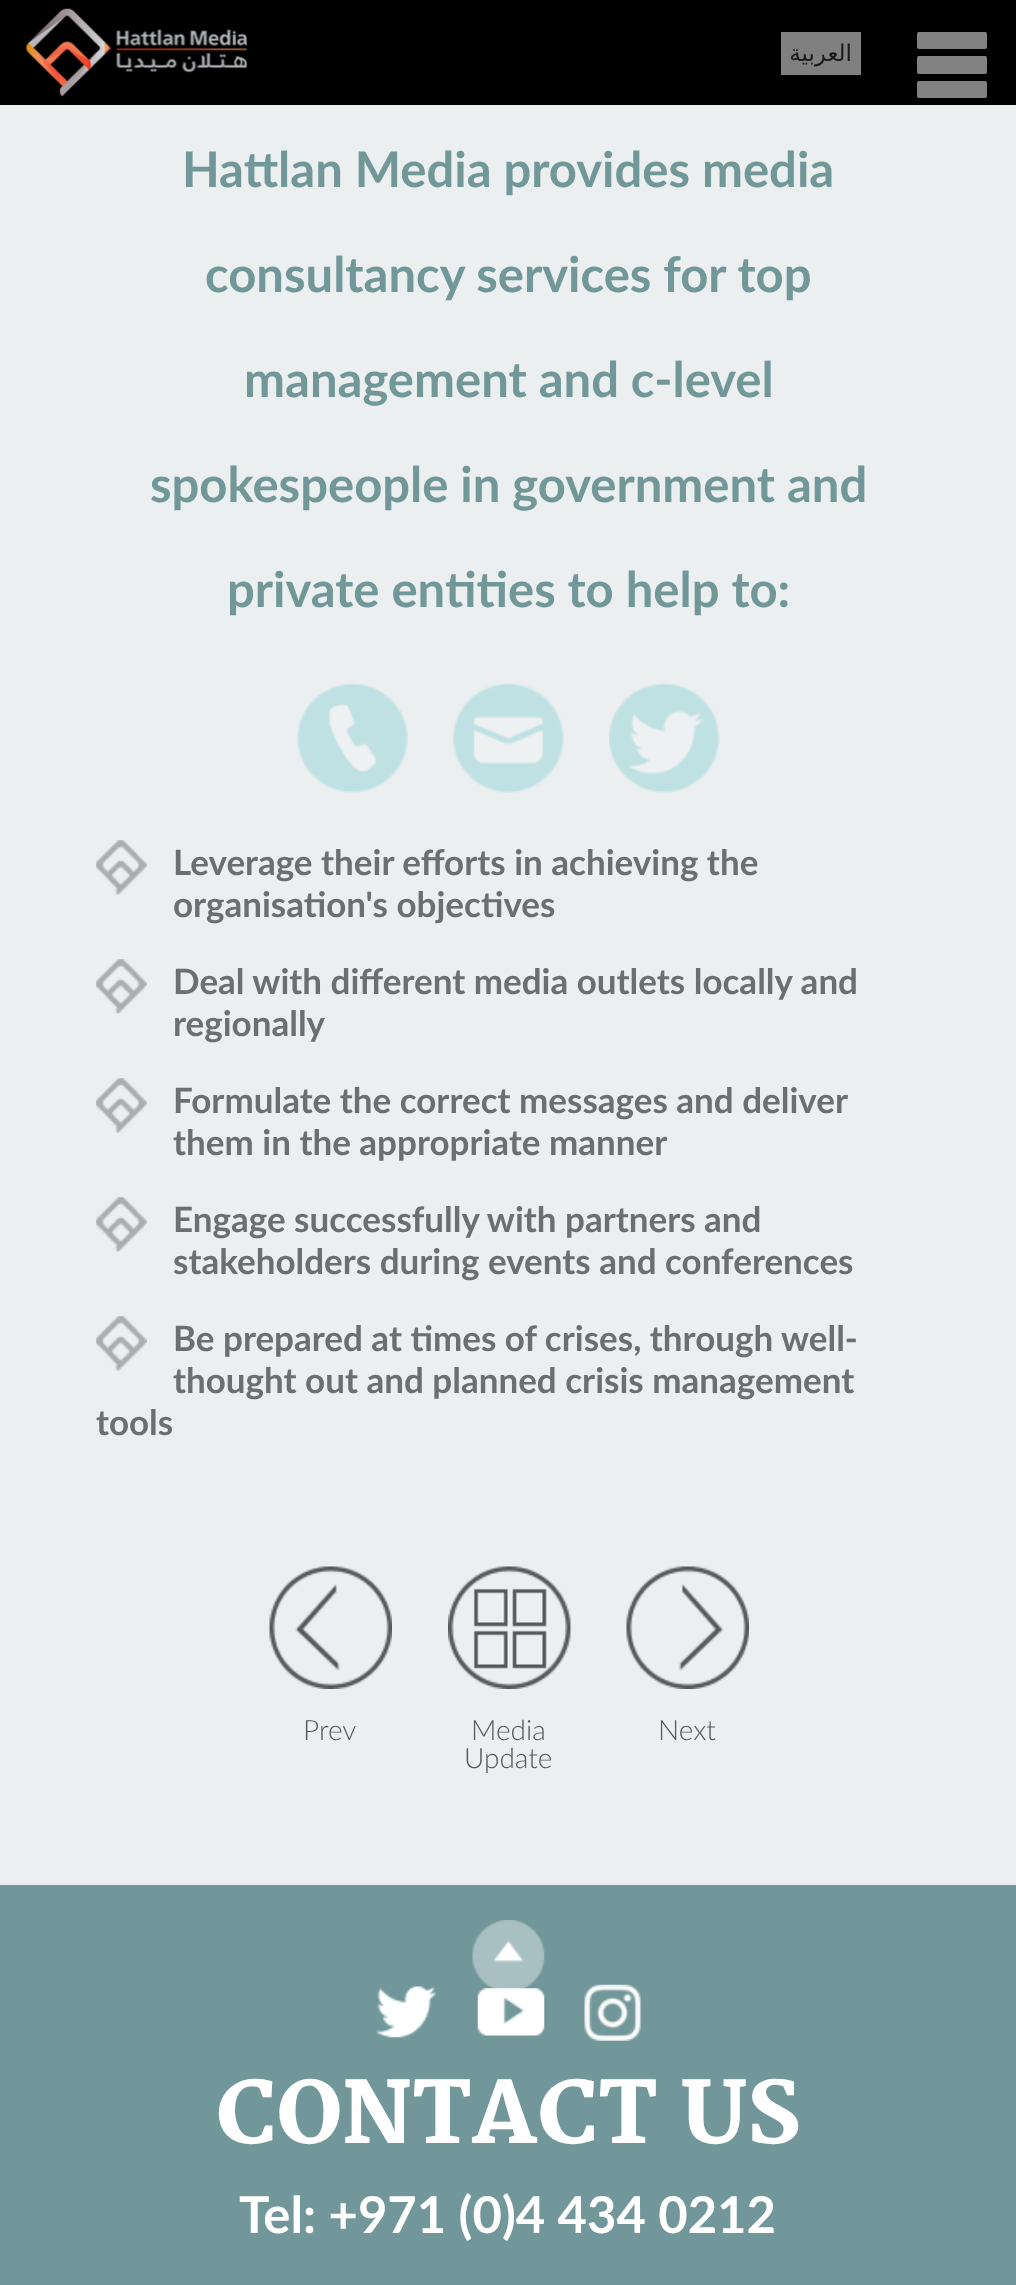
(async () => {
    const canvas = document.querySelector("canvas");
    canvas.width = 1016;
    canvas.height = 2285;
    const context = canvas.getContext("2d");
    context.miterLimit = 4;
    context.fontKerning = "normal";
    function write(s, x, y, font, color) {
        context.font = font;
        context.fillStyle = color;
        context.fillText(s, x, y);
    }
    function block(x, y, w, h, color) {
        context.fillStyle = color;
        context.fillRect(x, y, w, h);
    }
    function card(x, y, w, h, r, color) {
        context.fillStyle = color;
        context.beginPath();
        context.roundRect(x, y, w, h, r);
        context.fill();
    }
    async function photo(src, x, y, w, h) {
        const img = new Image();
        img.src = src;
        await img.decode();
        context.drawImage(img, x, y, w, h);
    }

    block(0, 0, 1016, 2285, "rgb(235, 239, 240)");
    block(0, 0, 1016, 105, "rgb(0, 0, 0)");
    await photo("media/1.png", 26, 8, 221, 89);
    block(781, 32, 80, 43, "rgb(128, 128, 128)");
    context.direction = "rtl";
    write("العربية", 852, 61, "23px DejaVu Sans", "rgb(26, 26, 26)");
    card(917, 32, 70, 17, 2, "rgb(130, 130, 130)");
    card(917, 56, 70, 18, 2, "rgb(130, 130, 130)");
    card(917, 81, 70, 17, 2, "rgb(130, 130, 130)");
    context.direction = "ltr";
    write("Hattlan Media provides media", 182, 187, "bold 49px Lato", "rgb(113, 151, 153)");
    write("consultancy services for top", 205, 292, "bold 49px Lato", "rgb(113, 151, 153)");
    write("management and c-level", 244, 397, "bold 49px Lato", "rgb(113, 151, 153)");
    write("spokespeople in government and", 150, 502, "bold 49px Lato", "rgb(113, 151, 153)");
    write("private entities to help to:", 227, 607, "bold 49px Lato", "rgb(113, 151, 153)");
    await photo("media/2.png", 297, 683, 111, 110);
    await photo("media/3.png", 453, 683, 111, 110);
    await photo("media/4.png", 609, 683, 111, 110);
    await photo("media/5.png", 96, 840, 51, 55);
    write("Leverage their efforts in achieving the", 173, 875, "bold 35px Lato", "rgb(109, 110, 111)");
    write("organisation's objectives", 173, 917, "bold 35px Lato", "rgb(109, 110, 111)");
    await photo("media/5.png", 96, 959, 51, 55);
    write("Deal with different media outlets locally and", 173, 994, "bold 35px Lato", "rgb(109, 110, 111)");
    write("regionally", 173, 1036, "bold 35px Lato", "rgb(109, 110, 111)");
    await photo("media/5.png", 96, 1078, 51, 55);
    write("Formulate the correct messages and deliver", 173, 1113, "bold 35px Lato", "rgb(109, 110, 111)");
    write("them in the appropriate manner", 173, 1155, "bold 35px Lato", "rgb(109, 110, 111)");
    await photo("media/5.png", 96, 1197, 51, 55);
    write("Engage successfully with partners and", 173, 1232, "bold 35px Lato", "rgb(109, 110, 111)");
    write("stakeholders during events and conferences", 173, 1274, "bold 35px Lato", "rgb(109, 110, 111)");
    await photo("media/5.png", 96, 1316, 51, 55);
    write("Be prepared at times of crises, through well-", 173, 1351, "bold 35px Lato", "rgb(109, 110, 111)");
    write("thought out and planned crisis management", 173, 1393, "bold 35px Lato", "rgb(109, 110, 111)");
    write("tools", 96, 1435, "bold 35px Lato", "rgb(109, 110, 111)");
    await photo("media/6.png", 269, 1566, 123, 123);
    write("Prev", 303, 1740, "300 28px Lato", "rgb(86, 87, 88)");
    await photo("media/7.png", 448, 1566, 123, 123);
    write("Media", 471, 1740, "300 28px Lato", "rgb(86, 87, 88)");
    write("Update", 464, 1768, "300 28px Lato", "rgb(86, 87, 88)");
    await photo("media/8.png", 626, 1566, 123, 123);
    write("Next", 658, 1740, "300 28px Lato", "rgb(86, 87, 88)");
    block(0, 1885, 1016, 400, "rgb(113, 151, 154)");
    await photo("media/11.png", 477, 1988, 68, 48);
    await photo("media/9.png", 472, 1920, 73, 69);
    await photo("media/10.png", 376, 1986, 60, 52);
    await photo("media/12.png", 584, 1984, 57, 57);
    write("CONTACT US", 216, 2143, "900 84px Merriweather", "rgb(255, 255, 255)");
    write("Tel: +971 (0)4 434 0212", 239, 2233, "bold 50.75px Lato", "rgb(255, 255, 255)");
})();
